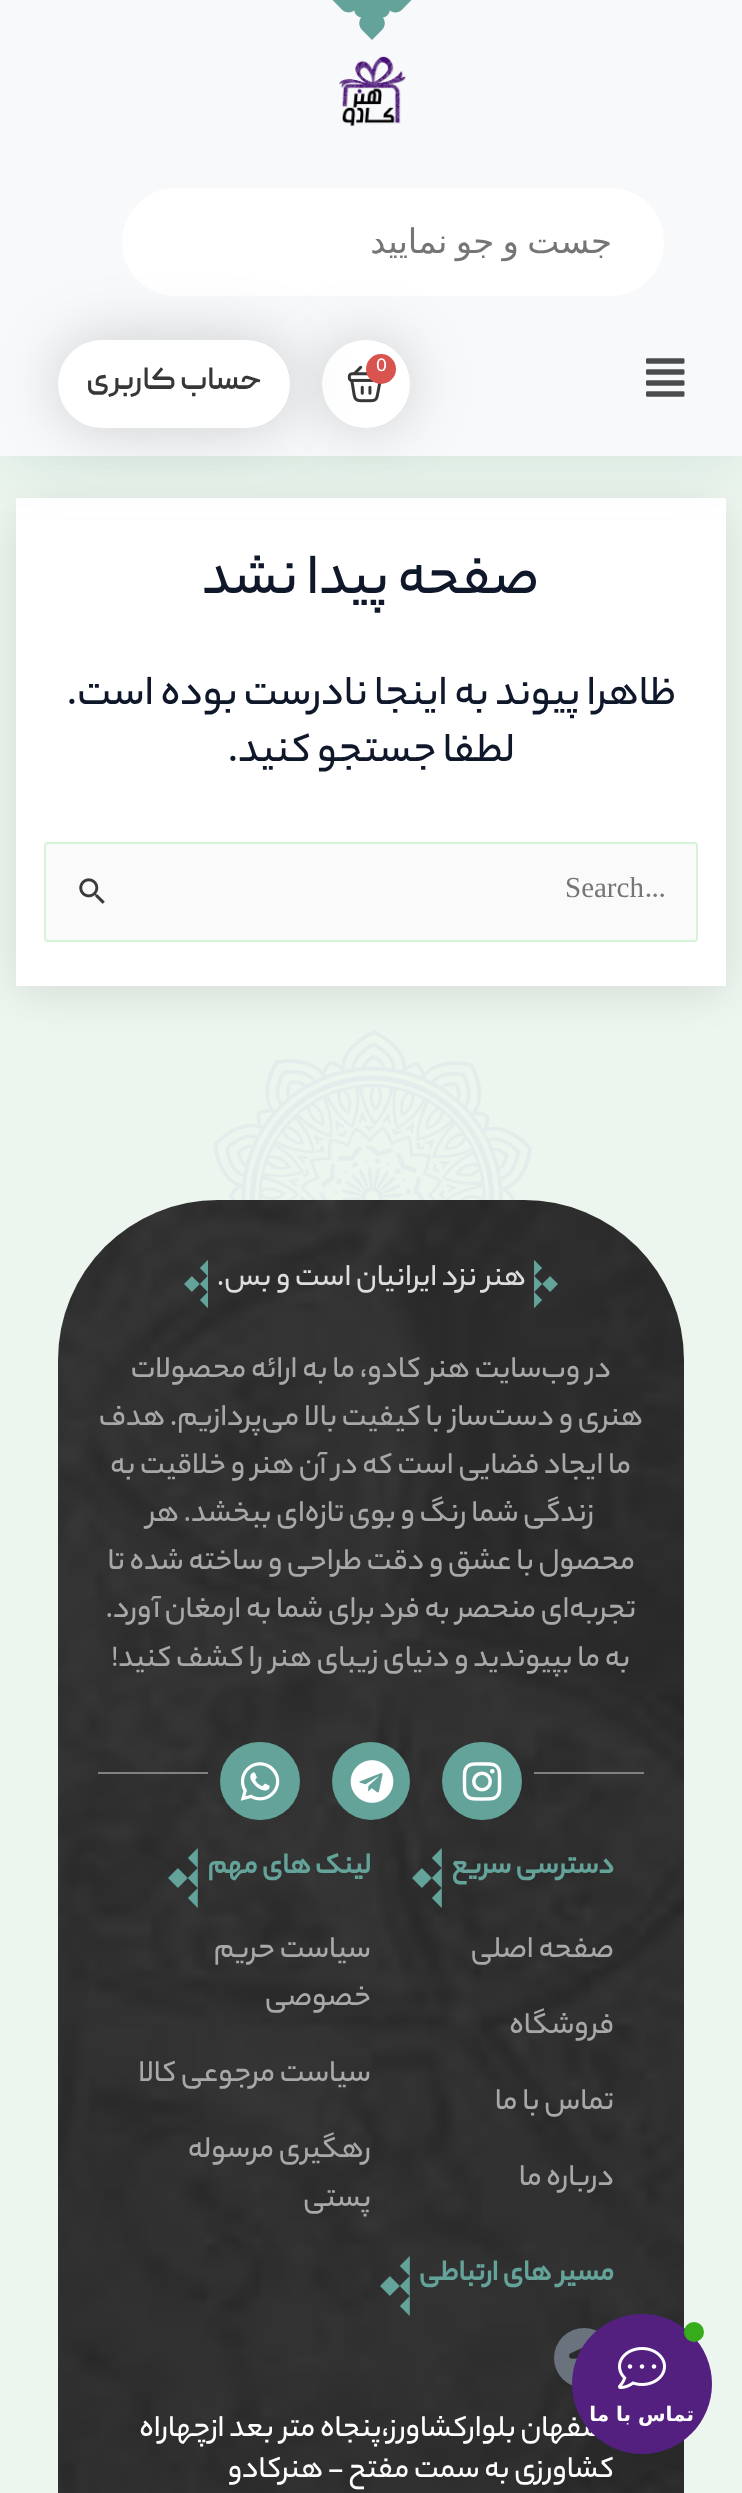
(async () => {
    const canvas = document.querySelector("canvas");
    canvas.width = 742;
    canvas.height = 2493;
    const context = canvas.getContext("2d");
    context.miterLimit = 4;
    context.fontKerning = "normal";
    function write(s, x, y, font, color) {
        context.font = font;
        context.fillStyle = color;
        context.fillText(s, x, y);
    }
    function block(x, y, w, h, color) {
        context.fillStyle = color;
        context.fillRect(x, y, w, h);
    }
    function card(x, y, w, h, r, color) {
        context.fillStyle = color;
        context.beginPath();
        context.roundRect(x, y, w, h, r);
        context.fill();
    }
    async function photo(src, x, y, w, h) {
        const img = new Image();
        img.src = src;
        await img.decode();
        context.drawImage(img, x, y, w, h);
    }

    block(0, 0, 742, 2493, "rgb(237, 246, 238)");
    context.fillStyle = "rgba(0, 0, 0, 0.1)";
    context.filter = "blur(20px)";
    context.beginPath();
    context.roundRect(16, 506, 710, 488, 20);
    context.fill();
    context.filter = "none";
    block(16, 498, 710, 488, "rgb(255, 255, 255)");
    context.fillStyle = "rgba(100, 163, 154, 0.23)";
    context.filter = "blur(30px)";
    context.beginPath();
    context.rect(0, 0, 742, 456);
    context.fill();
    context.filter = "none";
    block(0, 0, 742, 456, "rgb(248, 249, 251)");
    await photo("media/1.png", 332, 0, 80, 40);
    await photo("media/2.png", 338, 56, 68, 71);
    card(122, 188, 542, 108, 54, "rgb(255, 255, 255)");
    context.wordSpacing = "-2.5px";
    context.direction = "rtl";
    write("جست و جو نمایید", 612, 253, "34px DejaVu Sans", "rgb(117, 117, 117)");
    await photo("media/3.png", 646, 358, 39, 39);
    context.fillStyle = "rgba(95, 106, 105, 0.3)";
    context.filter = "blur(30px)";
    context.beginPath();
    context.roundRect(322, 340, 88, 88, 44);
    context.fill();
    context.filter = "none";
    context.fillStyle = "rgb(255, 255, 255)";
    context.beginPath();
    context.arc(366, 384, 44, 0, Math.PI * 2);
    context.fill();
    await photo("media/4.png", 347, 365, 35, 38);
    context.fillStyle = "rgb(217, 83, 79)";
    context.beginPath();
    context.arc(381, 369, 15, 0, Math.PI * 2);
    context.fill();
    context.wordSpacing = "0px";
    context.direction = "ltr";
    write("0", 376, 370, "500 20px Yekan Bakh", "rgb(255, 255, 255)");
    context.fillStyle = "rgba(95, 106, 105, 0.3)";
    context.filter = "blur(30px)";
    context.beginPath();
    context.roundRect(58, 340, 232, 88, 44);
    context.fill();
    context.filter = "none";
    card(58, 340, 232, 88, 44, "rgb(255, 255, 255)");
    context.direction = "rtl";
    write("حساب کاربری", 262, 389, "600 32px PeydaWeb", "rgb(55, 55, 55)");
    write("صفحه پیدا نشد", 539, 593, "500 60px Yekan Bakh", "rgb(15, 23, 42)");
    write("ظاهرا پیوند به اینجا نادرست بوده است.", 676, 704, "500 43.75px Yekan Bakh", "rgb(15, 23, 42)");
    write("لطفا جستجو کنید.", 515, 761, "500 43.75px Yekan Bakh", "rgb(15, 23, 42)");
    context.fillStyle = "rgb(250, 250, 250)";
    context.beginPath();
    context.roundRect(45, 843, 652, 98, 3);
    context.fill();
    context.strokeStyle = "rgb(212, 243, 215)";
    context.lineWidth = 2;
    context.stroke();
    context.direction = "ltr";
    write("...", 645, 897, "500 29px Yekan Bakh", "rgb(117, 117, 117)");
    write("Search", 565, 897, "29px Liberation Serif", "rgb(117, 117, 117)");
    await photo("media/5.png", 79, 878, 26, 26);
    await photo("media/6.png", 213, 1030, 319, 170);
    await photo("media/7.png", 58, 1200, 626, 1293);
    await photo("media/8.png", 534, 1260, 24, 48);
    context.direction = "rtl";
    write("هنر نزد ایرانیان است و بس.", 526, 1285, "500 32px Yekan Bakh", "rgb(221, 221, 221)");
    await photo("media/9.png", 184, 1260, 24, 48);
    write("در وب‌سایت هنر کادو، ما به ارائه محصولات", 611, 1377, "500 32px Yekan Bakh", "rgb(168, 168, 168)");
    write("هنری و دست‌ساز با کیفیت بالا می‌پردازیم. هدف", 643, 1425, "500 32px Yekan Bakh", "rgb(168, 168, 168)");
    write("ما ایجاد فضایی است که در آن هنر و خلاقیت به", 631, 1473, "500 32px Yekan Bakh", "rgb(168, 168, 168)");
    write("زندگی شما رنگ و بوی تازه‌ای ببخشد. هر", 594, 1521, "500 32px Yekan Bakh", "rgb(168, 168, 168)");
    write("محصول با عشق و دقت طراحی و ساخته شده تا", 635, 1569, "500 32px Yekan Bakh", "rgb(168, 168, 168)");
    write("تجربه‌ای منحصر به فرد برای شما به ارمغان آورد.", 636, 1617, "500 32px Yekan Bakh", "rgb(168, 168, 168)");
    write("به ما بپیوندید و دنیای زیبای هنر را کشف کنید!", 630, 1666, "500 32px Yekan Bakh", "rgb(168, 168, 168)");
    block(534, 1772, 110, 2, "rgb(129, 129, 129)");
    card(442, 1742, 80, 78, 39, "rgb(100, 163, 154)");
    await photo("media/10.png", 462, 1762, 40, 39);
    context.beginPath();
    context.arc(371, 1781, 39, 0, Math.PI * 2);
    context.fill();
    await photo("media/11.png", 350, 1760, 44, 43);
    card(220, 1742, 80, 78, 39, "rgb(100, 163, 154)");
    await photo("media/12.png", 240, 1762, 40, 39);
    block(98, 1772, 110, 2, "rgb(129, 129, 129)");
    write("دسترسی سریع", 614, 1873, "bold 30px Yekan Bakh", "rgb(100, 163, 154)");
    await photo("media/13.png", 412, 1848, 30, 60);
    write("صفحه اصلی", 614, 1957, "500 32px Yekan Bakh", "rgb(168, 168, 168)");
    write("فروشگاه", 614, 2033, "500 32px Yekan Bakh", "rgb(168, 168, 168)");
    write("تماس با ما", 614, 2109, "500 32px Yekan Bakh", "rgb(168, 168, 168)");
    write("درباره ما", 614, 2185, "500 32px Yekan Bakh", "rgb(168, 168, 168)");
    write("لینک های مهم", 371, 1873, "bold 30px Yekan Bakh", "rgb(100, 163, 154)");
    await photo("media/14.png", 168, 1848, 30, 60);
    write("سیاست حریم", 371, 1957, "500 32px Yekan Bakh", "rgb(168, 168, 168)");
    write("خصوصی", 371, 2005, "500 32px Yekan Bakh", "rgb(168, 168, 168)");
    write("سیاست مرجوعی کالا", 371, 2081, "500 32px Yekan Bakh", "rgb(168, 168, 168)");
    write("رهگیری مرسوله", 371, 2157, "500 32px Yekan Bakh", "rgb(168, 168, 168)");
    write("پستی", 371, 2206, "500 32px Yekan Bakh", "rgb(168, 168, 168)");
    write("مسیر های ارتباطی", 614, 2280, "bold 30px Yekan Bakh", "rgb(100, 163, 154)");
    await photo("media/15.png", 380, 2256, 30, 60);
    context.fillStyle = "rgb(105, 114, 125)";
    context.beginPath();
    context.arc(584, 2358, 30, 0, Math.PI * 2);
    context.fill();
    await photo("media/16.png", 569, 2347, 14, 12);
    write("اصفهان بلوارکشاورز،پنجاه متر بعد ازچهاراه", 614, 2436, "500 32px Yekan Bakh", "rgb(255, 255, 255)");
    write("کشاورزی به سمت مفتح - هنرکادو", 614, 2477, "500 32px Yekan Bakh", "rgb(255, 255, 255)");
    context.fillStyle = "rgb(83, 32, 128)";
    context.beginPath();
    context.arc(642, 2384, 70, 0, Math.PI * 2);
    context.fill();
    context.fillStyle = "rgb(53, 172, 25)";
    context.beginPath();
    context.arc(694, 2332, 10, 0, Math.PI * 2);
    context.fill();
    await photo("media/17.png", 618, 2347, 48, 42);
    write("تماس با ما", 694, 2421, "bold 20px DejaVu Sans", "rgb(255, 255, 255)");
})();
